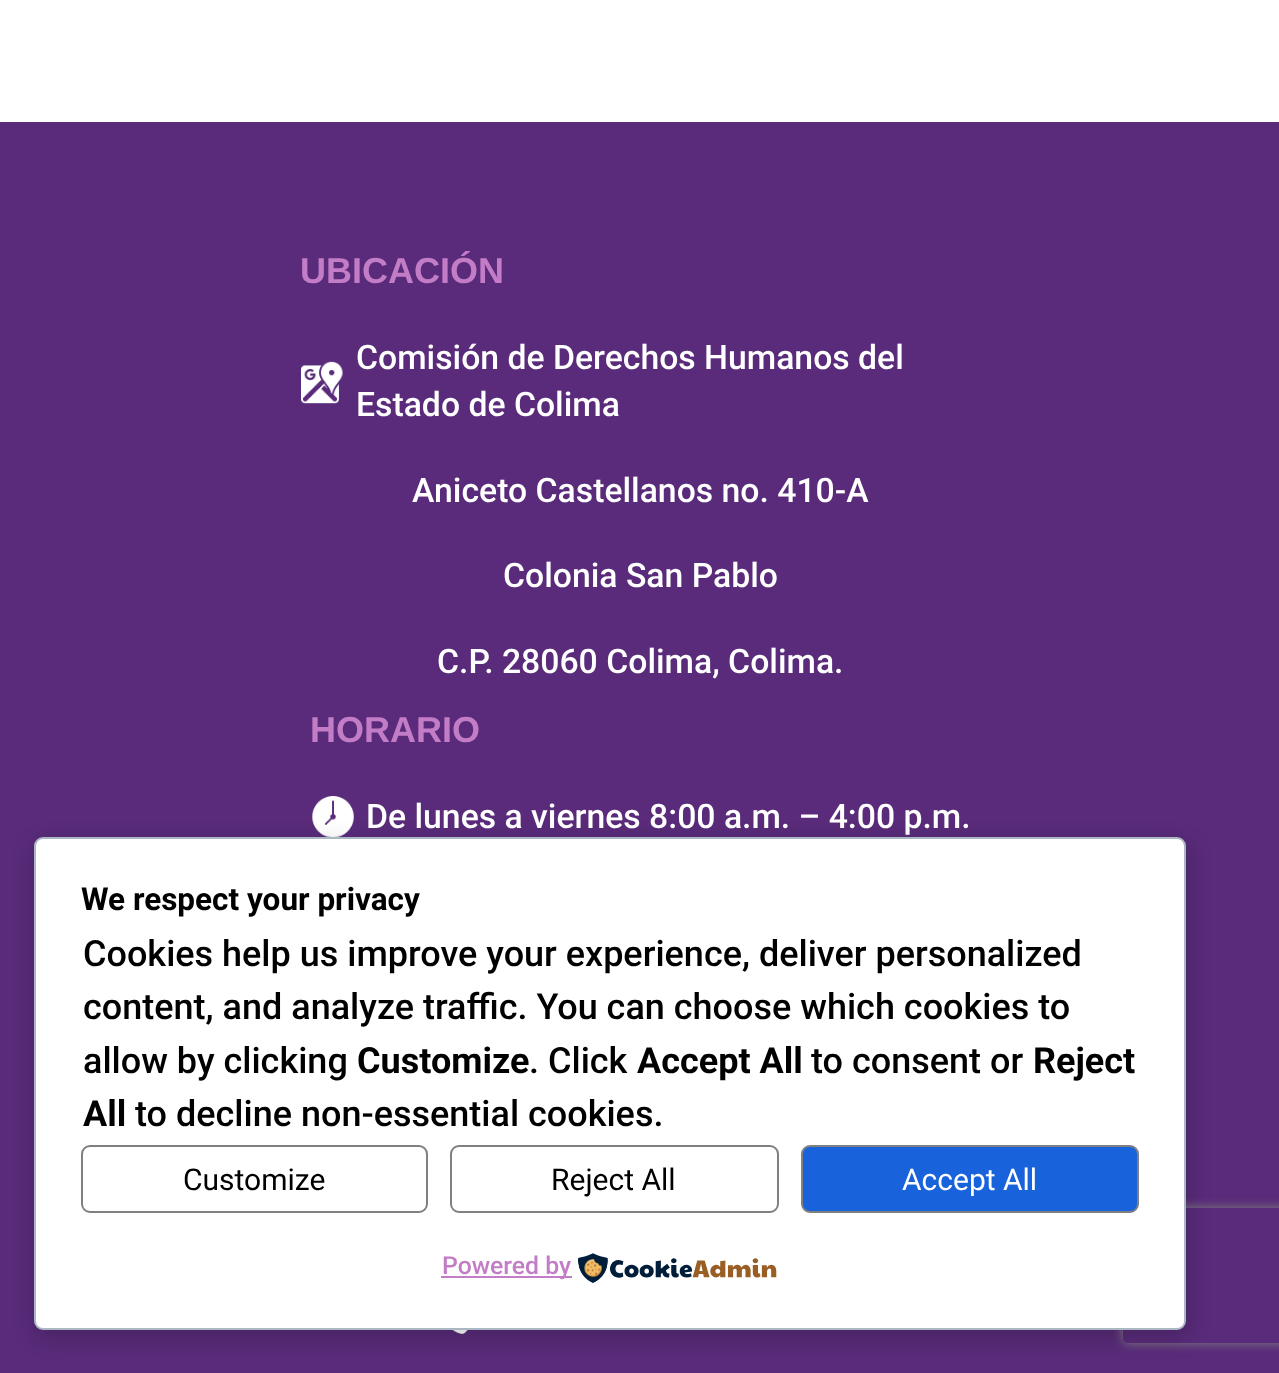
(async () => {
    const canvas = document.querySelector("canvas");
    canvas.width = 1279;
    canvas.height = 1373;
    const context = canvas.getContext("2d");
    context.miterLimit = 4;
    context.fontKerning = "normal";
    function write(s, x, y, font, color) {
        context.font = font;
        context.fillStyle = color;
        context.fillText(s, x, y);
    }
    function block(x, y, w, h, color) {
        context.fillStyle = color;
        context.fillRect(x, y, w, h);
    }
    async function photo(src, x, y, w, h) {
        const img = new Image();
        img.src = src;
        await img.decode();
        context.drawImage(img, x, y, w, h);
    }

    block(0, 0, 1279, 1373, "rgb(255, 255, 255)");
    block(0, 122, 1279, 1251, "rgb(89, 43, 122)");
    write("UBICACIÓN", 300, 283, "bold 36px Liberation Sans", "rgb(195, 124, 198)");
    write("Comisión de Derechos Humanos del", 356, 369, "500 33.75px Roboto", "rgb(255, 255, 255)");
    await photo("media/1.png", 301, 361, 42, 43);
    write("Estado de Colima", 356, 416, "500 33.75px Roboto", "rgb(255, 255, 255)");
    write("Aniceto Castellanos no. 410-A", 412, 502, "500 33.75px Roboto", "rgb(255, 255, 255)");
    write("Colonia San Pablo", 503, 587, "500 33.75px Roboto", "rgb(255, 255, 255)");
    write("C.P. 28060 Colima, Colima.", 437, 673, "500 33.75px Roboto", "rgb(255, 255, 255)");
    write("HORARIO", 310, 742, "bold 36px Liberation Sans", "rgb(195, 124, 198)");
    await photo("media/2.png", 312, 796, 42, 41);
    write("De lunes a viernes 8:00 a.m. – 4:00 p.m.", 366, 828, "500 33.75px Roboto", "rgb(255, 255, 255)");
    await photo("media/3.png", 452, 1330, 16, 4);
    context.fillStyle = "rgba(0, 0, 0, 0.2)";
    context.filter = "blur(11px)";
    context.beginPath();
    context.roundRect(36, 844, 1152, 493, 9);
    context.fill();
    context.filter = "none";
    context.save();
    context.beginPath();
    context.moveTo(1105, 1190);
    context.lineTo(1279, 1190);
    context.lineTo(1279, 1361);
    context.lineTo(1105, 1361);
    context.closePath();
    context.moveTo(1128, 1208);
    context.lineTo(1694, 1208);
    context.bezierCurveTo(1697, 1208, 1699, 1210, 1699, 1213);
    context.lineTo(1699, 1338);
    context.bezierCurveTo(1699, 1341, 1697, 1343, 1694, 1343);
    context.lineTo(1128, 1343);
    context.bezierCurveTo(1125, 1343, 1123, 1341, 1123, 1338);
    context.lineTo(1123, 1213);
    context.bezierCurveTo(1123, 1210, 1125, 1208, 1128, 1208);
    context.closePath();
    context.clip("evenodd");
    context.fillStyle = "rgb(128, 128, 128)";
    context.filter = "blur(5.5px)";
    context.beginPath();
    context.roundRect(1123, 1208, 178, 135, 5);
    context.fill();
    context.filter = "none";
    context.restore();
    context.fillStyle = "rgb(255, 255, 255)";
    context.beginPath();
    context.roundRect(35, 838, 1150, 491, 8);
    context.fill();
    context.strokeStyle = "rgb(171, 184, 195)";
    context.lineWidth = 2;
    context.stroke();
    write("We respect your privacy", 81, 910, "bold 31.5px Roboto", "rgb(0, 0, 0)");
    write("Cookies help us improve your experience, deliver personalized", 83, 966, "500 36px Roboto", "rgb(0, 0, 0)");
    write("content, and analyze traffic. You can choose which cookies to", 83, 1019, "500 36px Roboto", "rgb(0, 0, 0)");
    write("allow by clicking", 83, 1073, "500 36px Roboto", "rgb(0, 0, 0)");
    write("Customize", 357, 1073, "bold 36px Roboto", "rgb(0, 0, 0)");
    write(". Click", 529, 1073, "500 36px Roboto", "rgb(0, 0, 0)");
    write("Accept All", 637, 1073, "bold 36px Roboto", "rgb(0, 0, 0)");
    write("to consent or", 811, 1073, "500 36px Roboto", "rgb(0, 0, 0)");
    write("Reject", 1033, 1073, "bold 36px Roboto", "rgb(0, 0, 0)");
    write("All", 83, 1126, "bold 36px Roboto", "rgb(0, 0, 0)");
    write("to decline non-essential cookies.", 135, 1126, "500 36px Roboto", "rgb(0, 0, 0)");
    context.beginPath();
    context.roundRect(82, 1146, 345, 66, 8);
    context.strokeStyle = "rgb(128, 128, 128)";
    context.stroke();
    write("Customize", 183, 1190, "30px Roboto", "rgb(0, 0, 0)");
    context.beginPath();
    context.roundRect(451, 1146, 327, 66, 8);
    context.stroke();
    write("Reject All", 551, 1190, "30px Roboto", "rgb(0, 0, 0)");
    context.fillStyle = "rgb(24, 99, 220)";
    context.beginPath();
    context.roundRect(802, 1146, 336, 66, 8);
    context.fill();
    context.stroke();
    write("Accept All", 902, 1190, "30px Roboto", "rgb(255, 255, 255)");
    block(441, 1276, 131, 2, "rgb(195, 124, 198)");
    write("Powered by", 442, 1274, "500 24.75px Roboto", "rgb(195, 124, 198)");
    await photo("media/4.png", 578, 1253, 199, 30);
})();
